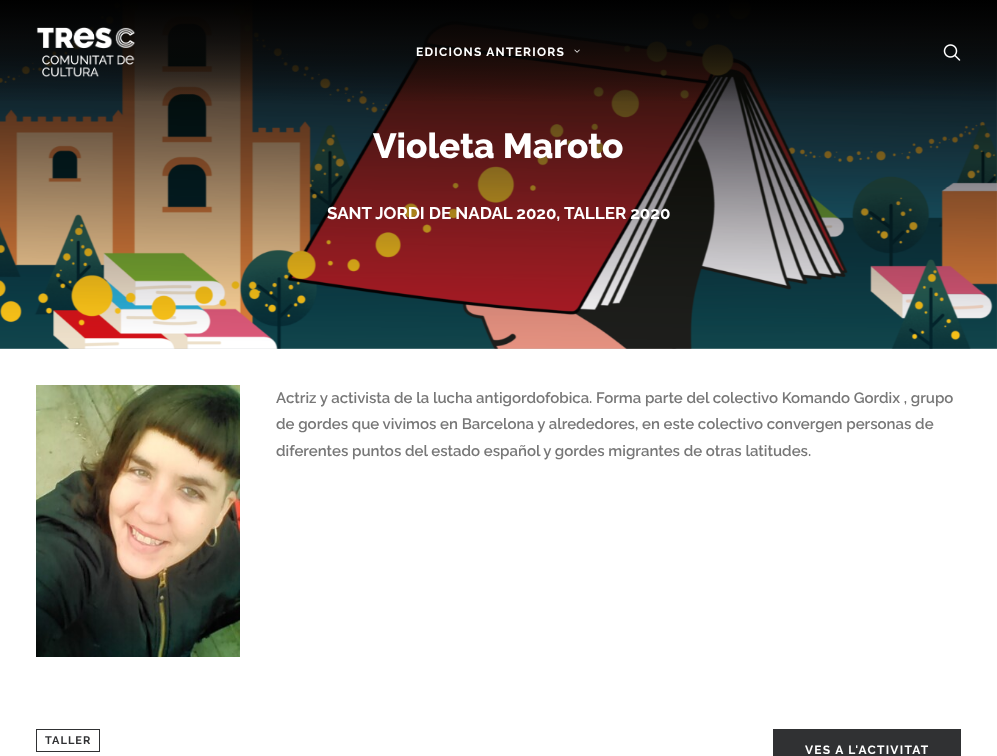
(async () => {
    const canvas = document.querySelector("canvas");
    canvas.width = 997;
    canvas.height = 756;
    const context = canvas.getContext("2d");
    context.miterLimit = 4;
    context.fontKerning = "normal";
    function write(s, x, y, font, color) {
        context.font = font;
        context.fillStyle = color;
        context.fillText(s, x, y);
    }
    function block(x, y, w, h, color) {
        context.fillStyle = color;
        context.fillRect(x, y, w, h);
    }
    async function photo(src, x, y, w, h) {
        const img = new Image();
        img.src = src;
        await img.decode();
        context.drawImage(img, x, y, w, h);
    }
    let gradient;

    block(0, 0, 997, 756, "rgb(255, 255, 255)");
    await photo("media/4.png", 0, 0, 997, 349);
    gradient = context.createLinearGradient(499, 104, 499, 0);
    gradient.addColorStop(0, "rgba(8, 8, 8, 0)");
    gradient.addColorStop(0.6, "rgba(8, 8, 8, 0.7)");
    gradient.addColorStop(1, "rgba(0, 0, 0, 0.95)");
    context.fillStyle = gradient;
    context.fillRect(0, 0, 997, 101);
    await photo("media/1.png", 36, 27, 99, 50);
    context.letterSpacing = "1.25px";
    write("EDICIONS ANTERIORS", 416, 56, "bold 12px Raleway", "rgb(255, 255, 255)");
    await photo("media/2.png", 574, 49, 6, 4);
    await photo("media/3.png", 943, 44, 18, 17);
    context.letterSpacing = "0px";
    write("Violeta Maroto", 373, 158, "800 35px Raleway", "rgb(255, 255, 255)");
    write("SANT JORDI DE NADAL 2020,", 327, 219, "bold 17px Raleway", "rgb(255, 255, 255)");
    write("TALLER 2020", 564, 219, "bold 17px Raleway", "rgb(255, 255, 255)");
    await photo("media/5.png", 36, 385, 204, 272);
    write("Actriz y activista de la lucha antigordofobica. Forma parte del colectivo Komando Gordix , grupo", 276, 403, "600 15px Raleway", "rgb(119, 119, 119)");
    write("de gordes que vivimos en Barcelona y alrededores, en este colectivo convergen personas de", 276, 429, "600 15px Raleway", "rgb(119, 119, 119)");
    write("diferentes puntos del estado español y gordes migrantes de otras latitudes.", 276, 456, "600 15px Raleway", "rgb(119, 119, 119)");
    context.strokeStyle = "rgb(48, 49, 51)";
    context.strokeRect(36.5, 729.5, 63, 22);
    context.letterSpacing = "1px";
    write("TALLER", 45, 744, "bold 11px Raleway", "rgb(48, 49, 51)");
    block(773, 729, 188, 27, "rgb(48, 49, 51)");
    context.letterSpacing = "1.25px";
    write("VES A L'ACTIVITAT", 805, 754, "bold 12px Raleway", "rgb(255, 255, 255)");
})();
